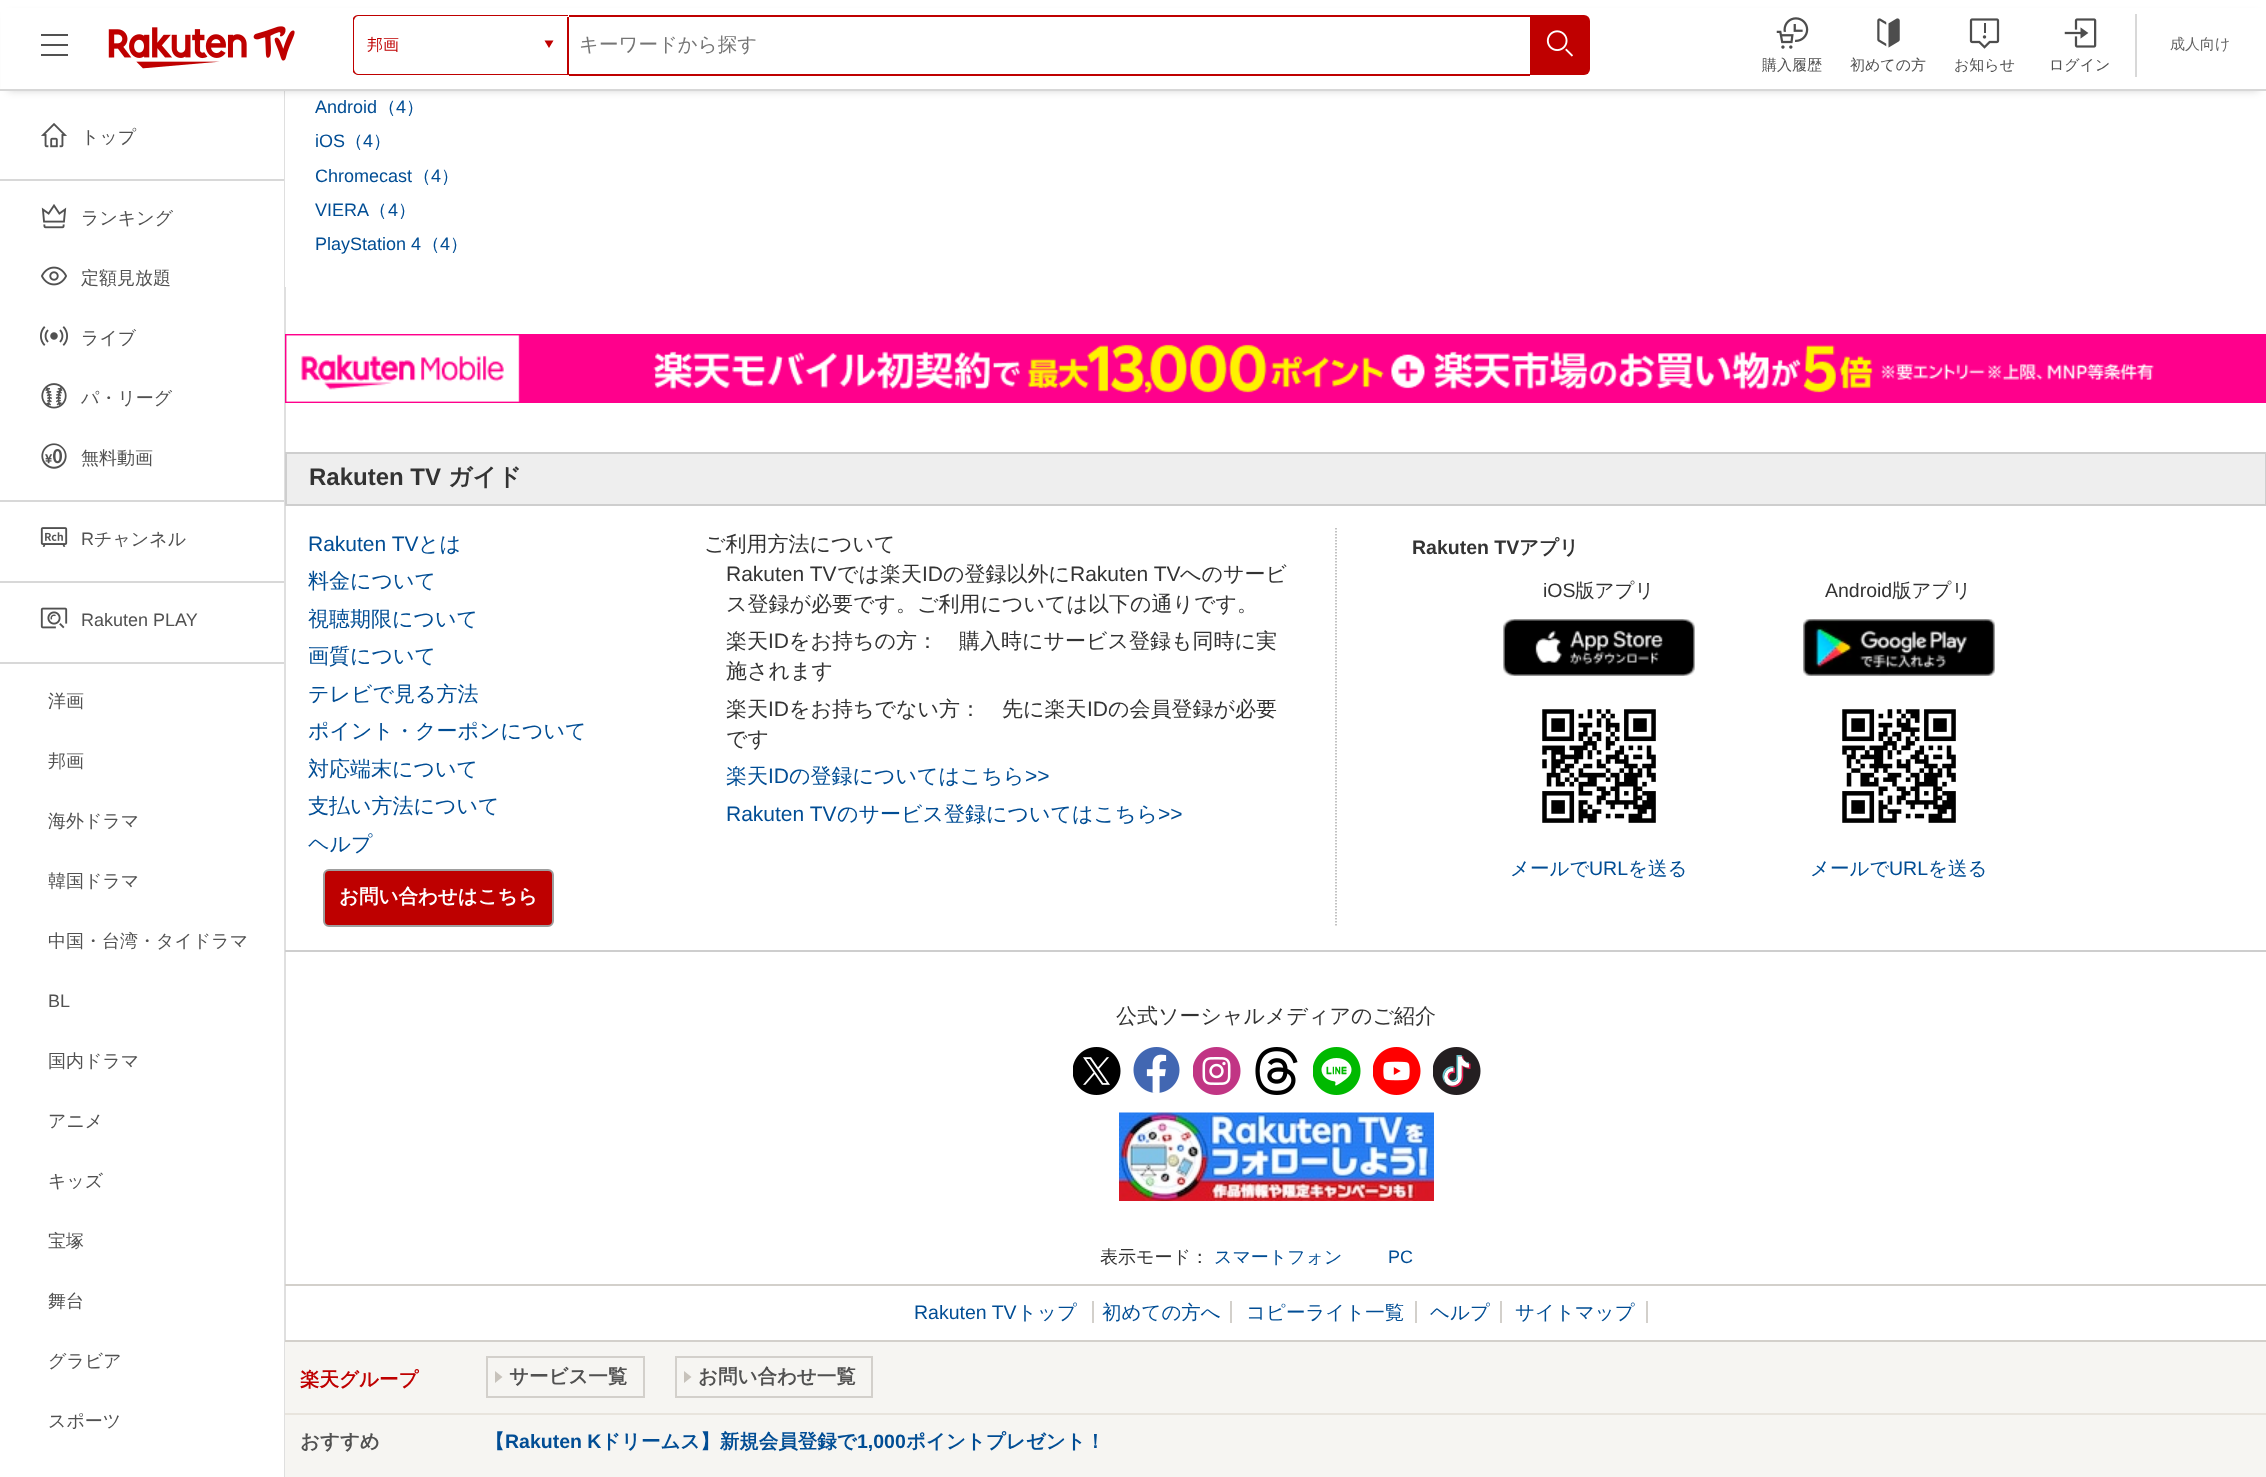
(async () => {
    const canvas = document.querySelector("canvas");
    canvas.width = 2266;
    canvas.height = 1477;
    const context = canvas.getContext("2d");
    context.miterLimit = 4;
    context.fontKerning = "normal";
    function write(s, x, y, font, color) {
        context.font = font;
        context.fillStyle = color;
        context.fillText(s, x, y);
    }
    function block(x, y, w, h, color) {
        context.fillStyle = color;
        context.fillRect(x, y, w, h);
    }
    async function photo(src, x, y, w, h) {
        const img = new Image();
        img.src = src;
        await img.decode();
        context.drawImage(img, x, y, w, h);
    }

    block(0, 0, 2266, 1477, "rgb(255, 255, 255)");
    block(284, 90, 2, 1387, "rgb(223, 223, 223)");
    block(285, 91, 1, 196, "rgb(255, 255, 255)");
    context.fillStyle = "rgba(0, 0, 0, 0.2)";
    context.filter = "blur(4px)";
    context.beginPath();
    context.rect(8, 15, 2251, 75);
    context.fill();
    context.filter = "none";
    block(1, 8, 2265, 81, "rgb(255, 255, 255)");
    block(0, 89, 2266, 2, "rgb(215, 215, 215)");
    block(41, 34, 27, 2, "rgb(81, 81, 81)");
    block(41, 44, 27, 2, "rgb(81, 81, 81)");
    block(41, 54, 27, 2, "rgb(81, 81, 81)");
    await photo("media/1.png", 108, 26, 187, 43);
    context.save();
    context.beginPath();
    context.rect(353, 15, 216, 60);
    context.clip();
    context.fillStyle = "rgb(191, 0, 0)";
    context.beginPath();
    context.moveTo(358, 15);
    context.lineTo(568, 15);
    context.lineTo(568, 75);
    context.lineTo(358, 75);
    context.bezierCurveTo(355, 75, 352, 72, 352, 69);
    context.lineTo(352, 21);
    context.bezierCurveTo(352, 18, 355, 15, 358, 15);
    context.closePath();
    context.moveTo(358, 16);
    context.lineTo(568, 16);
    context.lineTo(568, 74);
    context.lineTo(358, 74);
    context.bezierCurveTo(356, 74, 354, 71, 354, 69);
    context.lineTo(354, 21);
    context.bezierCurveTo(354, 19, 356, 16, 358, 16);
    context.closePath();
    context.fill("evenodd");
    context.restore();
    write("邦画", 367, 50, "500 16px WenQuanYi Zen Hei", "rgb(191, 0, 0)");
    context.beginPath();
    context.moveTo(544.5, 40.5);
    context.lineTo(553.5, 40.5);
    context.lineTo(549, 48);
    context.closePath();
    context.fill();
    block(567, 17, 2, 58, "rgb(191, 0, 0)");
    block(569, 15, 961, 2, "rgb(191, 0, 0)");
    block(569, 74, 961, 2, "rgb(191, 0, 0)");
    write("キーワードから探す", 579, 51, "500 19.5px WenQuanYi Zen Hei", "rgb(117, 117, 117)");
    context.fillStyle = "rgb(191, 0, 0)";
    context.beginPath();
    context.roundRect(1530, 15, 60, 60, [0, 6, 6, 0]);
    context.fill();
    await photo("media/2.png", 1546, 30, 27, 27);
    block(2135, 14, 2, 63, "rgb(216, 216, 216)");
    write("成人向け", 2170, 49, "500 15px WenQuanYi Zen Hei", "rgb(98, 98, 98)");
    await photo("media/3.png", 1776, 17, 33, 32);
    write("購入履歴", 1762, 70, "500 15px WenQuanYi Zen Hei", "rgb(81, 81, 81)");
    await photo("media/4.png", 1877, 18, 23, 30);
    write("初めての方", 1850, 70, "500 15px WenQuanYi Zen Hei", "rgb(81, 81, 81)");
    await photo("media/5.png", 1969, 18, 31, 31);
    write("お知らせ", 1954, 70, "500 15px WenQuanYi Zen Hei", "rgb(81, 81, 81)");
    await photo("media/6.png", 2064, 18, 33, 30);
    write("ログイン", 2049, 70, "500 15px WenQuanYi Zen Hei", "rgb(81, 81, 81)");
    await photo("media/7.png", 41, 123, 26, 25);
    write("トップ", 81, 143, "500 18px WenQuanYi Zen Hei", "rgb(81, 81, 81)");
    block(0, 179, 284, 2, "rgb(216, 216, 216)");
    await photo("media/8.png", 41, 204, 26, 25);
    write("ランキング", 81, 224, "500 18px WenQuanYi Zen Hei", "rgb(81, 81, 81)");
    await photo("media/9.png", 41, 266, 26, 20);
    write("定額見放題", 81, 284, "500 18px WenQuanYi Zen Hei", "rgb(81, 81, 81)");
    await photo("media/10.png", 40, 326, 28, 20);
    write("ライブ", 81, 344, "500 18px WenQuanYi Zen Hei", "rgb(81, 81, 81)");
    await photo("media/11.png", 41, 383, 26, 26);
    write("パ・リーグ", 81, 404, "500 18px WenQuanYi Zen Hei", "rgb(81, 81, 81)");
    await photo("media/12.png", 41, 443, 26, 26);
    write("無料動画", 81, 464, "500 18px WenQuanYi Zen Hei", "rgb(81, 81, 81)");
    block(0, 500, 284, 2, "rgb(216, 216, 216)");
    await photo("media/13.png", 40, 527, 28, 20);
    write("R", 81, 545, "18px Liberation Sans", "rgb(81, 81, 81)");
    write("チャンネル", 94, 545, "500 18px WenQuanYi Zen Hei", "rgb(81, 81, 81)");
    block(0, 581, 284, 2, "rgb(216, 216, 216)");
    await photo("media/14.png", 40, 607, 28, 22);
    write("Rakuten PLAY", 81, 626, "18px Liberation Sans", "rgb(81, 81, 81)");
    block(0, 662, 284, 2, "rgb(216, 216, 216)");
    write("洋画", 48, 707, "500 18px WenQuanYi Zen Hei", "rgb(81, 81, 81)");
    write("邦画", 48, 767, "500 18px WenQuanYi Zen Hei", "rgb(81, 81, 81)");
    write("海外ドラマ", 48, 827, "500 18px WenQuanYi Zen Hei", "rgb(81, 81, 81)");
    write("韓国ドラマ", 48, 887, "500 18px WenQuanYi Zen Hei", "rgb(81, 81, 81)");
    write("中国・台湾・タイドラマ", 48, 947, "500 18px WenQuanYi Zen Hei", "rgb(81, 81, 81)");
    write("BL", 48, 1007, "18px Liberation Sans", "rgb(81, 81, 81)");
    write("国内ドラマ", 48, 1067, "500 18px WenQuanYi Zen Hei", "rgb(81, 81, 81)");
    write("アニメ", 48, 1127, "500 18px WenQuanYi Zen Hei", "rgb(81, 81, 81)");
    write("キッズ", 48, 1187, "500 18px WenQuanYi Zen Hei", "rgb(81, 81, 81)");
    write("宝塚", 48, 1247, "500 18px WenQuanYi Zen Hei", "rgb(81, 81, 81)");
    write("舞台", 48, 1307, "500 18px WenQuanYi Zen Hei", "rgb(81, 81, 81)");
    write("グラビア", 48, 1367, "500 18px WenQuanYi Zen Hei", "rgb(81, 81, 81)");
    write("スポーツ", 48, 1427, "500 18px WenQuanYi Zen Hei", "rgb(81, 81, 81)");
    write("Android", 315, 113, "18px Liberation Sans", "rgb(1, 77, 148)");
    write("（", 378, 113, "500 18px WenQuanYi Zen Hei", "rgb(1, 77, 148)");
    write("4", 396, 113, "18px Liberation Sans", "rgb(1, 77, 148)");
    write("）", 406, 113, "500 18px WenQuanYi Zen Hei", "rgb(1, 77, 148)");
    write("iOS", 315, 147, "18px Liberation Sans", "rgb(1, 77, 148)");
    write("（", 345, 147, "500 18px WenQuanYi Zen Hei", "rgb(1, 77, 148)");
    write("4", 363, 147, "18px Liberation Sans", "rgb(1, 77, 148)");
    write("）", 373, 147, "500 18px WenQuanYi Zen Hei", "rgb(1, 77, 148)");
    write("Chromecast", 315, 182, "18px Liberation Sans", "rgb(1, 77, 148)");
    write("（", 413, 182, "500 18px WenQuanYi Zen Hei", "rgb(1, 77, 148)");
    write("4", 431, 182, "18px Liberation Sans", "rgb(1, 77, 148)");
    write("）", 441, 182, "500 18px WenQuanYi Zen Hei", "rgb(1, 77, 148)");
    write("VIERA", 315, 216, "18px Liberation Sans", "rgb(1, 77, 148)");
    write("（", 369, 216, "500 18px WenQuanYi Zen Hei", "rgb(1, 77, 148)");
    write("4", 388, 216, "18px Liberation Sans", "rgb(1, 77, 148)");
    write("）", 398, 216, "500 18px WenQuanYi Zen Hei", "rgb(1, 77, 148)");
    write("PlayStation 4", 315, 250, "18px Liberation Sans", "rgb(1, 77, 148)");
    write("（", 422, 250, "500 18px WenQuanYi Zen Hei", "rgb(1, 77, 148)");
    write("4", 440, 250, "18px Liberation Sans", "rgb(1, 77, 148)");
    write("）", 450, 250, "500 18px WenQuanYi Zen Hei", "rgb(1, 77, 148)");
    await photo("media/15.png", 285, 334, 1981, 69);
    context.fillStyle = "rgb(238, 238, 238)";
    context.beginPath();
    context.rect(286, 453, 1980, 52);
    context.fill();
    context.strokeStyle = "rgb(206, 206, 206)";
    context.lineWidth = 2;
    context.stroke();
    write("Rakuten TV", 309, 485, "bold 24px Liberation Sans", "rgb(51, 51, 51)");
    write("ガイド", 448, 485, "bold 24px WenQuanYi Zen Hei", "rgb(51, 51, 51)");
    block(285, 950, 1981, 2, "rgb(206, 206, 206)");
    write("Rakuten TV", 308, 551, "21px Liberation Sans", "rgb(1, 77, 148)");
    write("とは", 418, 551, "500 21px WenQuanYi Zen Hei", "rgb(1, 77, 148)");
    write("料金について", 308, 588, "500 21px WenQuanYi Zen Hei", "rgb(1, 77, 148)");
    write("視聴期限について", 308, 626, "500 21px WenQuanYi Zen Hei", "rgb(1, 77, 148)");
    write("画質について", 308, 663, "500 21px WenQuanYi Zen Hei", "rgb(1, 77, 148)");
    write("テレビで見る方法", 308, 701, "500 21px WenQuanYi Zen Hei", "rgb(1, 77, 148)");
    write("ポイント・クーポンについて", 308, 738, "500 21px WenQuanYi Zen Hei", "rgb(1, 77, 148)");
    write("対応端末について", 308, 776, "500 21px WenQuanYi Zen Hei", "rgb(1, 77, 148)");
    write("支払い方法について", 308, 813, "500 21px WenQuanYi Zen Hei", "rgb(1, 77, 148)");
    write("ヘルプ", 308, 851, "500 21px WenQuanYi Zen Hei", "rgb(1, 77, 148)");
    write("ご利用方法について", 704, 551, "500 21px WenQuanYi Zen Hei", "rgb(51, 51, 51)");
    write("Rakuten TV", 726, 581, "21px Liberation Sans", "rgb(51, 51, 51)");
    write("では楽天", 837, 581, "500 21px WenQuanYi Zen Hei", "rgb(51, 51, 51)");
    write("ID", 922, 581, "21px Liberation Sans", "rgb(51, 51, 51)");
    write("の登録以外に", 943, 581, "500 21px WenQuanYi Zen Hei", "rgb(51, 51, 51)");
    write("Rakuten TV", 1070, 581, "21px Liberation Sans", "rgb(51, 51, 51)");
    write("へのサービ", 1180, 581, "500 21px WenQuanYi Zen Hei", "rgb(51, 51, 51)");
    write("ス登録が必要です。ご利用については以下の通りです。", 726, 611, "500 21px WenQuanYi Zen Hei", "rgb(51, 51, 51)");
    write("楽天", 726, 648, "500 21px WenQuanYi Zen Hei", "rgb(51, 51, 51)");
    write("ID", 768, 648, "21px Liberation Sans", "rgb(51, 51, 51)");
    write("をお持ちの方：　購入時にサービス登録も同時に実", 789, 648, "500 21px WenQuanYi Zen Hei", "rgb(51, 51, 51)");
    write("施されます", 726, 678, "500 21px WenQuanYi Zen Hei", "rgb(51, 51, 51)");
    write("楽天", 726, 716, "500 21px WenQuanYi Zen Hei", "rgb(51, 51, 51)");
    write("ID", 768, 716, "21px Liberation Sans", "rgb(51, 51, 51)");
    write("をお持ちでない方：　先に楽天", 789, 716, "500 21px WenQuanYi Zen Hei", "rgb(51, 51, 51)");
    write("ID", 1087, 716, "21px Liberation Sans", "rgb(51, 51, 51)");
    write("の会員登録が必要", 1108, 716, "500 21px WenQuanYi Zen Hei", "rgb(51, 51, 51)");
    write("です", 726, 746, "500 21px WenQuanYi Zen Hei", "rgb(51, 51, 51)");
    write("楽天", 726, 783, "500 21px WenQuanYi Zen Hei", "rgb(1, 77, 148)");
    write("ID", 768, 783, "21px Liberation Sans", "rgb(1, 77, 148)");
    write("の登録についてはこちら", 789, 783, "500 21px WenQuanYi Zen Hei", "rgb(1, 77, 148)");
    write(">>", 1025, 783, "21px Liberation Sans", "rgb(1, 77, 148)");
    write("Rakuten TV", 726, 821, "21px Liberation Sans", "rgb(1, 77, 148)");
    write("のサービス登録についてはこちら", 837, 821, "500 21px WenQuanYi Zen Hei", "rgb(1, 77, 148)");
    write(">>", 1158, 821, "21px Liberation Sans", "rgb(1, 77, 148)");
    context.beginPath();
    context.moveTo(1336, 528);
    context.lineTo(1336, 927);
    context.strokeStyle = "rgb(174, 174, 174)";
    context.lineWidth = 1.5;
    context.setLineDash([1.5, 1.5]);
    context.stroke();
    write("Rakuten TV", 1412, 554, "bold 19.5px Liberation Sans", "rgb(51, 51, 51)");
    write("アプリ", 1519, 554, "bold 19.5px WenQuanYi Zen Hei", "rgb(51, 51, 51)");
    write("iOS", 1543, 597, "19.5px Liberation Sans", "rgb(51, 51, 51)");
    write("版アプリ", 1575, 597, "500 19.5px WenQuanYi Zen Hei", "rgb(51, 51, 51)");
    await photo("media/16.png", 1503, 619, 192, 57);
    await photo("media/17.png", 1542, 709, 114, 114);
    write("メールで", 1510, 875, "500 19.5px WenQuanYi Zen Hei", "rgb(1, 77, 148)");
    write("URL", 1589, 875, "19.5px Liberation Sans", "rgb(1, 77, 148)");
    write("を送る", 1628, 875, "500 19.5px WenQuanYi Zen Hei", "rgb(1, 77, 148)");
    write("Android", 1825, 597, "19.5px Liberation Sans", "rgb(51, 51, 51)");
    write("版アプリ", 1892, 597, "500 19.5px WenQuanYi Zen Hei", "rgb(51, 51, 51)");
    await photo("media/18.png", 1803, 619, 192, 57);
    await photo("media/19.png", 1842, 709, 114, 114);
    write("メールで", 1810, 875, "500 19.5px WenQuanYi Zen Hei", "rgb(1, 77, 148)");
    write("URL", 1889, 875, "19.5px Liberation Sans", "rgb(1, 77, 148)");
    write("を送る", 1928, 875, "500 19.5px WenQuanYi Zen Hei", "rgb(1, 77, 148)");
    context.fillStyle = "rgb(190, 0, 0)";
    context.beginPath();
    context.roundRect(324, 870, 229, 56, 5);
    context.fill();
    context.strokeStyle = "rgb(158, 158, 158)";
    context.lineWidth = 2;
    context.setLineDash([]);
    context.stroke();
    write("お問い合わせはこちら", 339, 903, "bold 19.5px WenQuanYi Zen Hei", "rgb(255, 255, 255)");
    write("公式ソーシャルメディアのご紹介", 1116, 1023, "500 21px WenQuanYi Zen Hei", "rgb(51, 51, 51)");
    await photo("media/20.png", 1073, 1047, 48, 48);
    await photo("media/21.png", 1133, 1047, 47, 46);
    await photo("media/22.png", 1193, 1047, 48, 48);
    await photo("media/23.png", 1255, 1047, 43, 48);
    await photo("media/24.png", 1313, 1047, 48, 48);
    await photo("media/25.png", 1373, 1047, 48, 48);
    await photo("media/26.png", 1433, 1047, 48, 48);
    await photo("media/27.png", 1119, 1112, 315, 89);
    write("表示モード：", 1100, 1263, "500 18px WenQuanYi Zen Hei", "rgb(51, 51, 51)");
    write("スマートフォン", 1214, 1263, "500 18px WenQuanYi Zen Hei", "rgb(1, 77, 148)");
    write("PC", 1388, 1263, "18px Liberation Sans", "rgb(1, 77, 148)");
    block(285, 1284, 1981, 2, "rgb(211, 208, 203)");
    write("Rakuten TV", 914, 1319, "19.5px Liberation Sans", "rgb(1, 77, 148)");
    write("トップ", 1017, 1319, "500 19.5px WenQuanYi Zen Hei", "rgb(1, 77, 148)");
    block(1092, 1301, 2, 22, "rgb(211, 208, 203)");
    write("初めての方へ", 1102, 1319, "500 19.5px WenQuanYi Zen Hei", "rgb(1, 77, 148)");
    block(1230, 1301, 2, 22, "rgb(211, 208, 203)");
    write("コピーライト一覧", 1246, 1319, "500 19.5px WenQuanYi Zen Hei", "rgb(1, 77, 148)");
    block(1415, 1301, 2, 22, "rgb(211, 208, 203)");
    write("ヘルプ", 1430, 1319, "500 19.5px WenQuanYi Zen Hei", "rgb(1, 77, 148)");
    block(1500, 1301, 2, 22, "rgb(211, 208, 203)");
    write("サイトマップ", 1515, 1319, "500 19.5px WenQuanYi Zen Hei", "rgb(1, 77, 148)");
    block(1646, 1301, 2, 22, "rgb(211, 208, 203)");
    block(285, 1342, 1981, 135, "rgb(246, 245, 242)");
    block(285, 1340, 1981, 2, "rgb(211, 208, 203)");
    write("楽天グループ", 300, 1386, "bold 19.5px WenQuanYi Zen Hei", "rgb(191, 0, 0)");
    context.strokeStyle = "rgb(211, 208, 203)";
    context.strokeRect(487, 1357, 157, 40);
    context.fillStyle = "rgb(199, 194, 187)";
    context.beginPath();
    context.moveTo(495, 1383);
    context.lineTo(495, 1371);
    context.lineTo(502.5, 1377);
    context.closePath();
    context.fill();
    write("サービス一覧", 509, 1383, "bold 19.5px WenQuanYi Zen Hei", "rgb(81, 81, 81)");
    context.strokeRect(676, 1357, 196, 40);
    context.fillStyle = "rgb(199, 194, 187)";
    context.beginPath();
    context.moveTo(684, 1383);
    context.lineTo(684, 1371);
    context.lineTo(691.5, 1377);
    context.closePath();
    context.fill();
    write("お問い合わせ一覧", 698, 1383, "bold 19.5px WenQuanYi Zen Hei", "rgb(81, 81, 81)");
    block(285, 1413, 1981, 2, "rgb(232, 228, 221)");
    write("おすすめ", 300, 1448, "bold 19.5px WenQuanYi Zen Hei", "rgb(81, 81, 81)");
    write("【", 485, 1448, "bold 19.5px WenQuanYi Zen Hei", "rgb(1, 77, 148)");
    write("Rakuten K", 505, 1448, "bold 19.5px Liberation Sans", "rgb(1, 77, 148)");
    write("ドリームス】新規会員登録で", 601, 1448, "bold 19.5px WenQuanYi Zen Hei", "rgb(1, 77, 148)");
    write("1,000", 857, 1448, "bold 19.5px Liberation Sans", "rgb(1, 77, 148)");
    write("ポイントプレゼント！", 906, 1448, "bold 19.5px WenQuanYi Zen Hei", "rgb(1, 77, 148)");
})();
